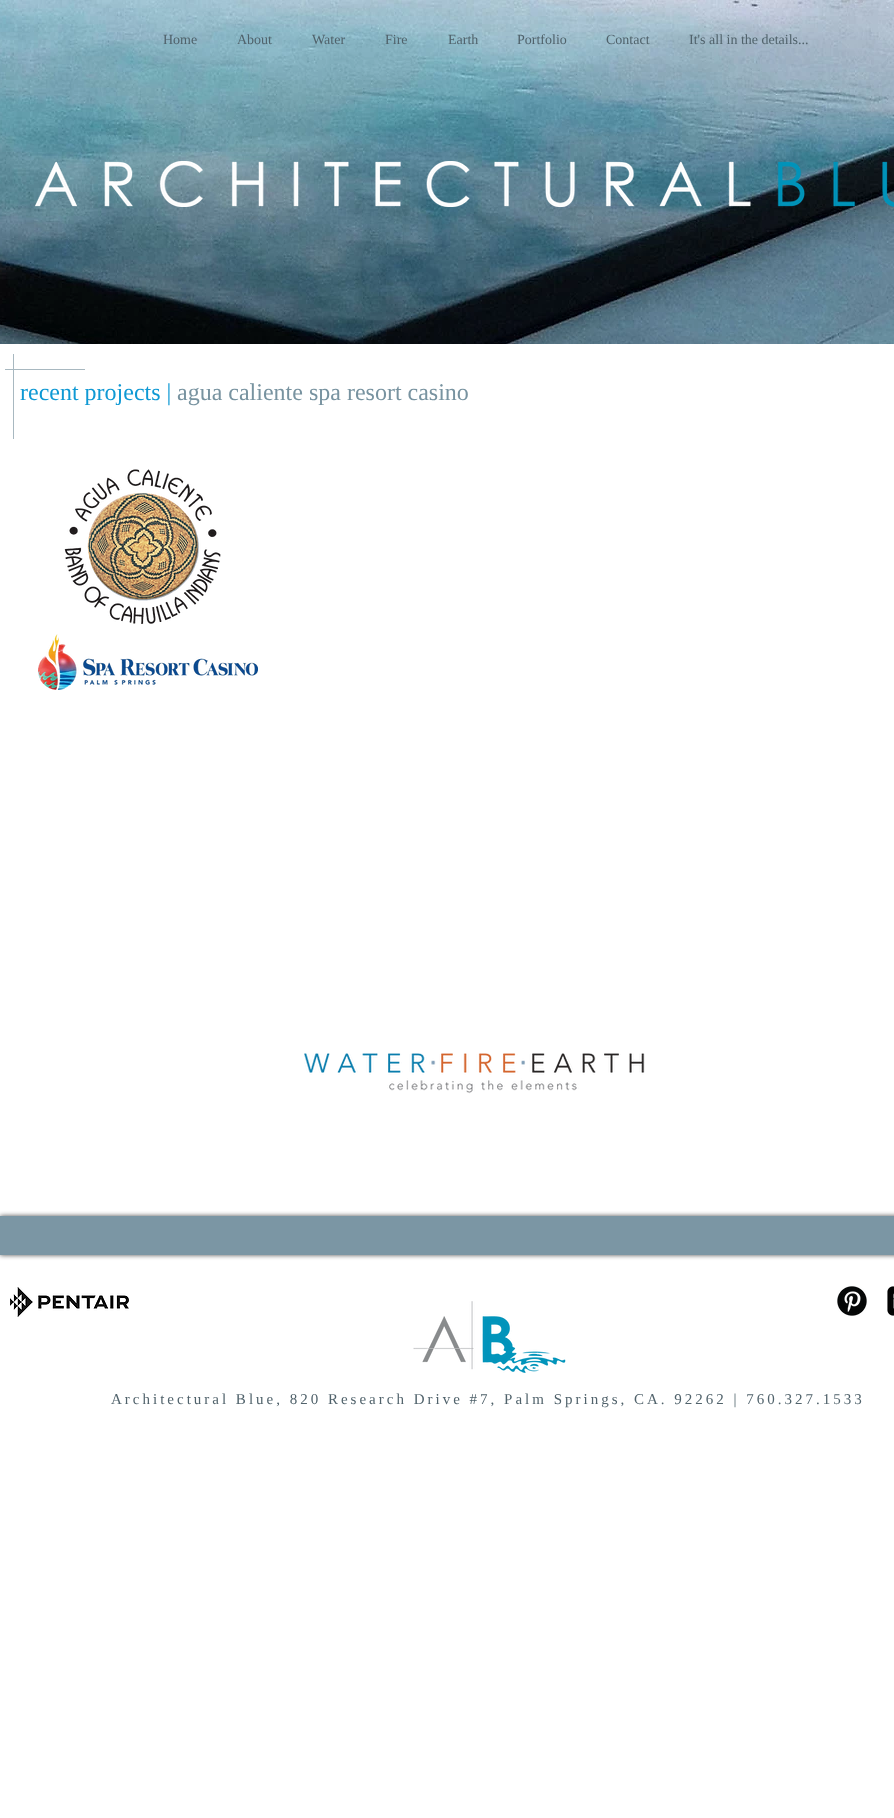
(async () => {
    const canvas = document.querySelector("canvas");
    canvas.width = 894;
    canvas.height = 1818;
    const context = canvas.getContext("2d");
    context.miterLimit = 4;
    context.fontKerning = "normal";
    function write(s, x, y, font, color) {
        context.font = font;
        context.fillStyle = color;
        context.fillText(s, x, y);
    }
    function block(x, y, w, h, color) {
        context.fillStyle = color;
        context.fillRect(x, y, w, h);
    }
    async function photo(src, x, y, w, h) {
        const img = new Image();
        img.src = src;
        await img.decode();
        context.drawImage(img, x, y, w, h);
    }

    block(0, 0, 894, 1818, "rgb(255, 255, 255)");
    await photo("media/1.png", 0, 0, 894, 344);
    write("Home", 163, 44, "14px Liberation Serif", "rgb(80, 98, 107)");
    write("About", 237, 44, "14px Liberation Serif", "rgb(80, 98, 107)");
    write("Water", 312, 44, "14px Liberation Serif", "rgb(80, 98, 107)");
    write("Fire", 385, 44, "14px Liberation Serif", "rgb(80, 98, 107)");
    write("Earth", 448, 44, "14px Liberation Serif", "rgb(80, 98, 107)");
    write("Portfolio", 517, 44, "14px Liberation Serif", "rgb(80, 98, 107)");
    write("Contact", 606, 44, "14px Liberation Serif", "rgb(80, 98, 107)");
    write("It's all in the details...", 689, 44, "14px Liberation Serif", "rgb(80, 98, 107)");
    await photo("media/2.png", 35, 161, 859, 46);
    block(13, 354, 1, 85, "rgb(168, 184, 192)");
    block(5, 369, 80, 1, "rgb(168, 184, 192)");
    write("recent projects |", 20, 400, "24px Liberation Serif", "rgb(15, 153, 212)");
    write("agua caliente spa resort casino", 177, 400, "24px Liberation Serif", "rgb(120, 147, 160)");
    await photo("media/3.png", 64, 469, 157, 155);
    await photo("media/4.png", 38, 634, 220, 56);
    await photo("media/5.png", 304, 1053, 341, 41);
    context.fillStyle = "rgba(0, 0, 0, 0.7)";
    context.filter = "blur(2.5px)";
    context.beginPath();
    context.rect(0, 1216, 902, 39);
    context.fill();
    context.filter = "none";
    block(0, 1216, 894, 39, "rgb(123, 150, 164)");
    await photo("media/6.png", 10, 1287, 119, 30);
    await photo("media/7.png", 413, 1301, 153, 72);
    await photo("media/8.png", 837, 1286, 30, 30);
    await photo("media/9.png", 887, 1286, 7, 30);
    context.letterSpacing = "3px";
    write("Architectural Blue, 820 Research Drive #7, Palm Springs, CA. 92262 | 760.327.1533", 111, 1404, "15px Liberation Serif", "rgb(80, 98, 107)");
})();
